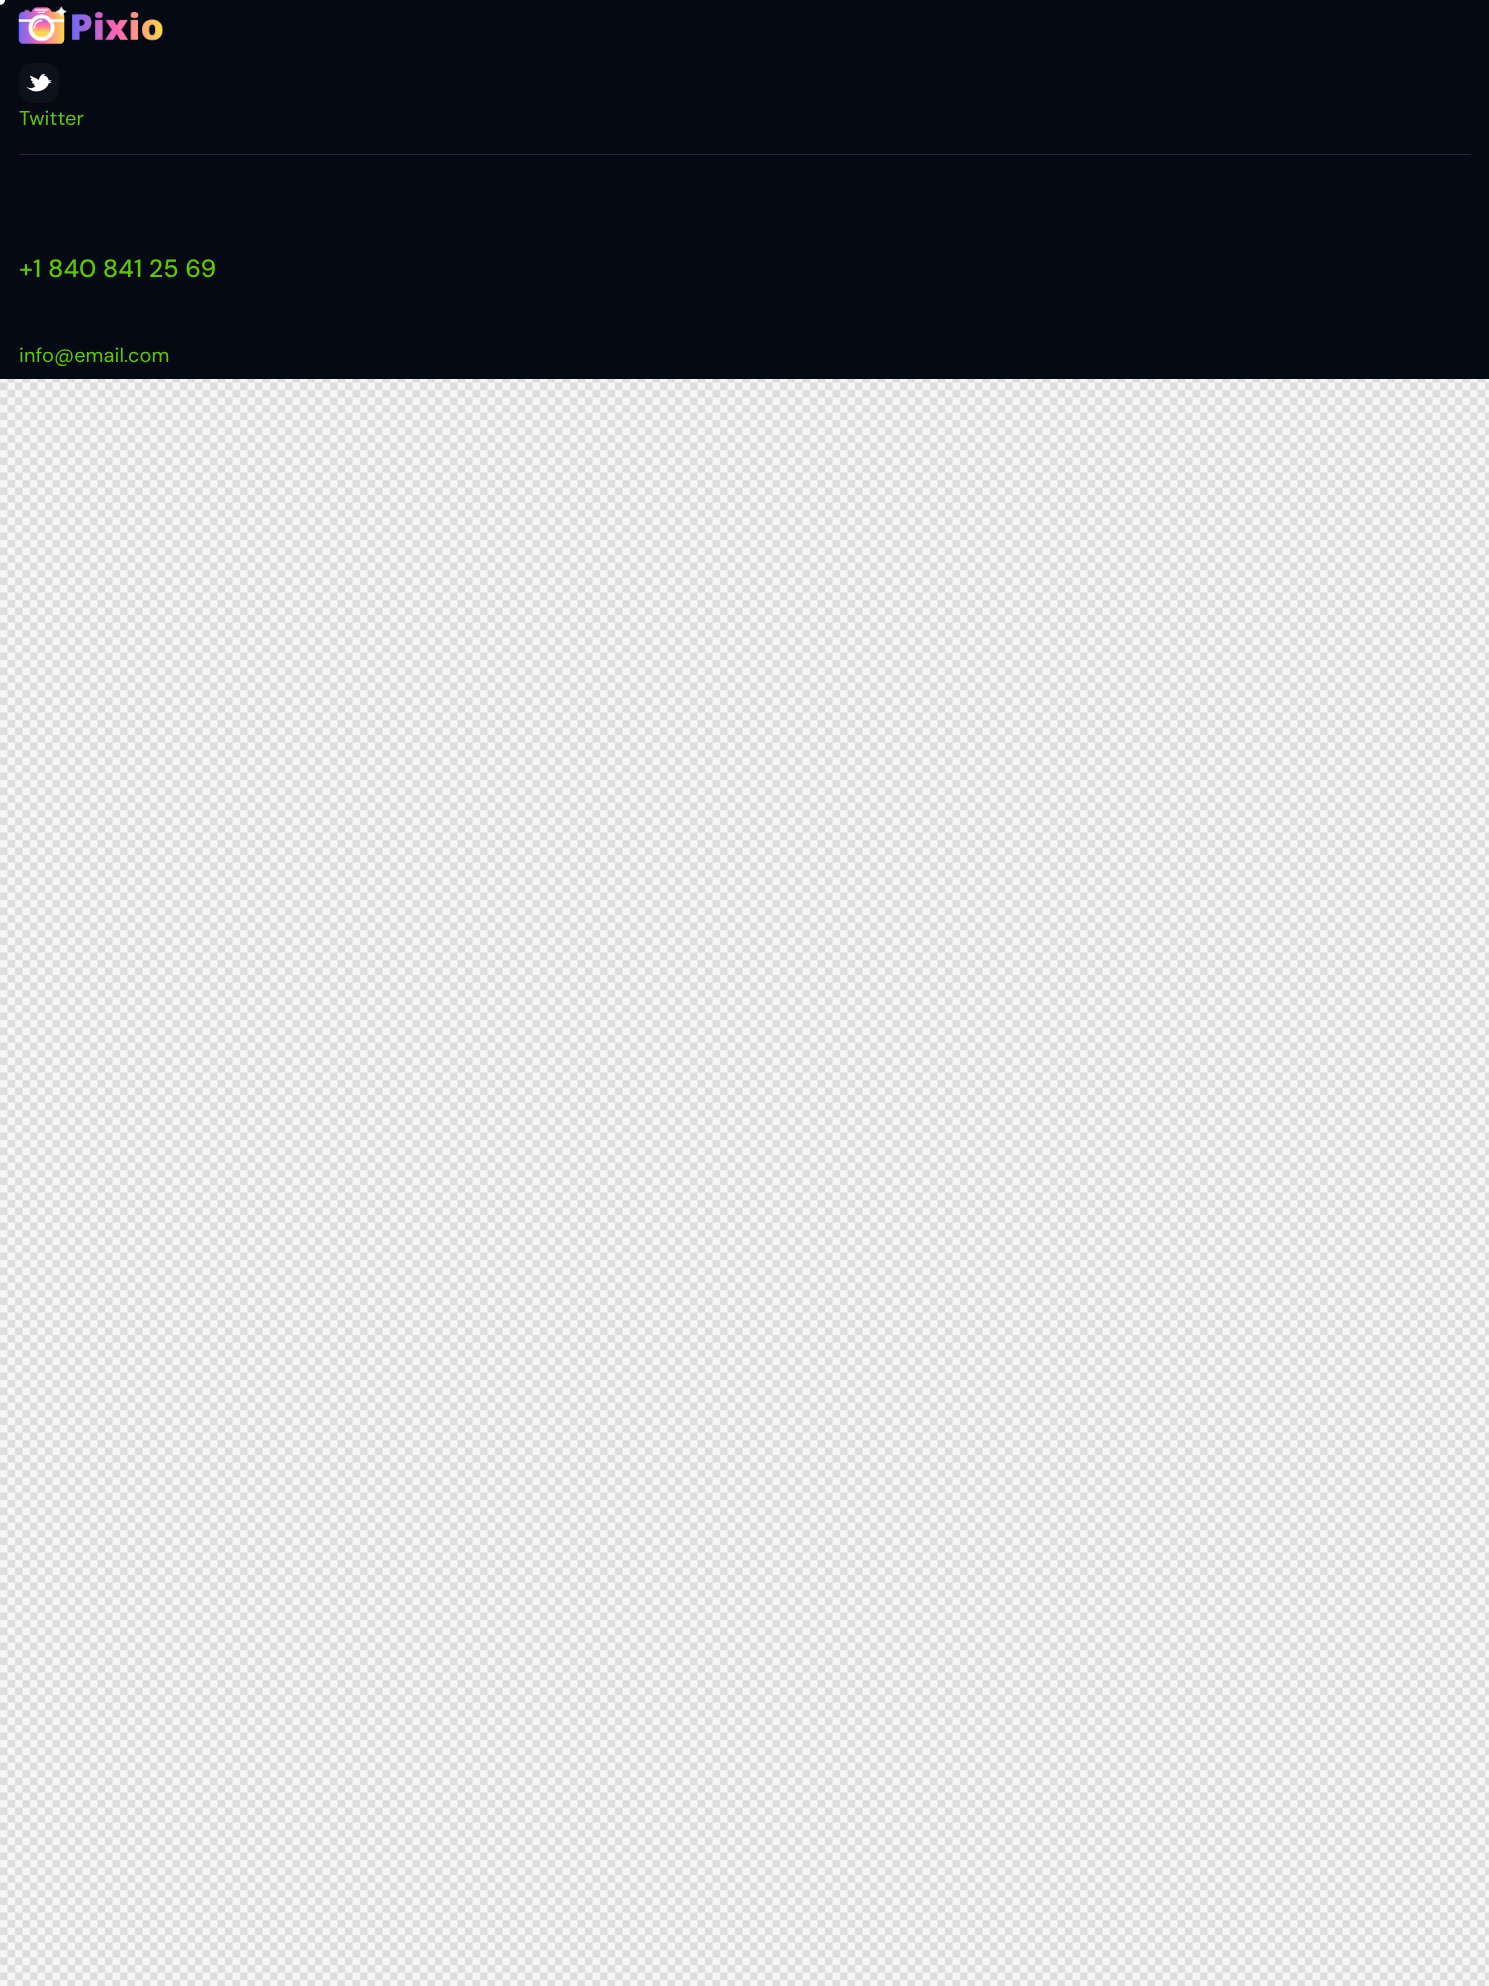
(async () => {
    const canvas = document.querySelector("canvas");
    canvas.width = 1489;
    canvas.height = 1986;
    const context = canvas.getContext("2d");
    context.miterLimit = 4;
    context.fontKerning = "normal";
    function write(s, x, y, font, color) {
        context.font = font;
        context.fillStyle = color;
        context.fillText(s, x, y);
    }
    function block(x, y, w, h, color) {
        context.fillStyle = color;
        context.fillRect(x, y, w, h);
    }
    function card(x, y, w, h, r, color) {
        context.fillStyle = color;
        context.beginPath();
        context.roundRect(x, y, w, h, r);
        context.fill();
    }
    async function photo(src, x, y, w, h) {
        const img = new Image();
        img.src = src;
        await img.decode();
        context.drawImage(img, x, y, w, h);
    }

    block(0, 0, 1489, 1986, "rgb(255, 255, 255)");
    await photo("media/1.png", 0, 379, 1489, 1607);
    block(0, 0, 1489, 379, "rgb(5, 9, 19)");
    context.fillStyle = "rgb(255, 255, 255)";
    context.beginPath();
    context.arc(0, 0, 5, 0, Math.PI * 2);
    context.fill();
    await photo("media/2.png", 18, 6, 145, 38);
    card(19, 63, 40, 40, 13, "rgb(13, 17, 26)");
    await photo("media/3.png", 26, 73, 26, 19);
    context.letterSpacing = "0.1px";
    write("Twitter", 19, 125, "20px DM Sans", "rgb(94, 201, 0)");
    block(19, 154, 1452, 1, "rgb(43, 37, 63)");
    write("+1 840 841 25 69", 19, 277, "500 25px DM Sans", "rgb(94, 201, 0)");
    write("info@email.com", 19, 362, "20px DM Sans", "rgb(94, 201, 0)");
})();
